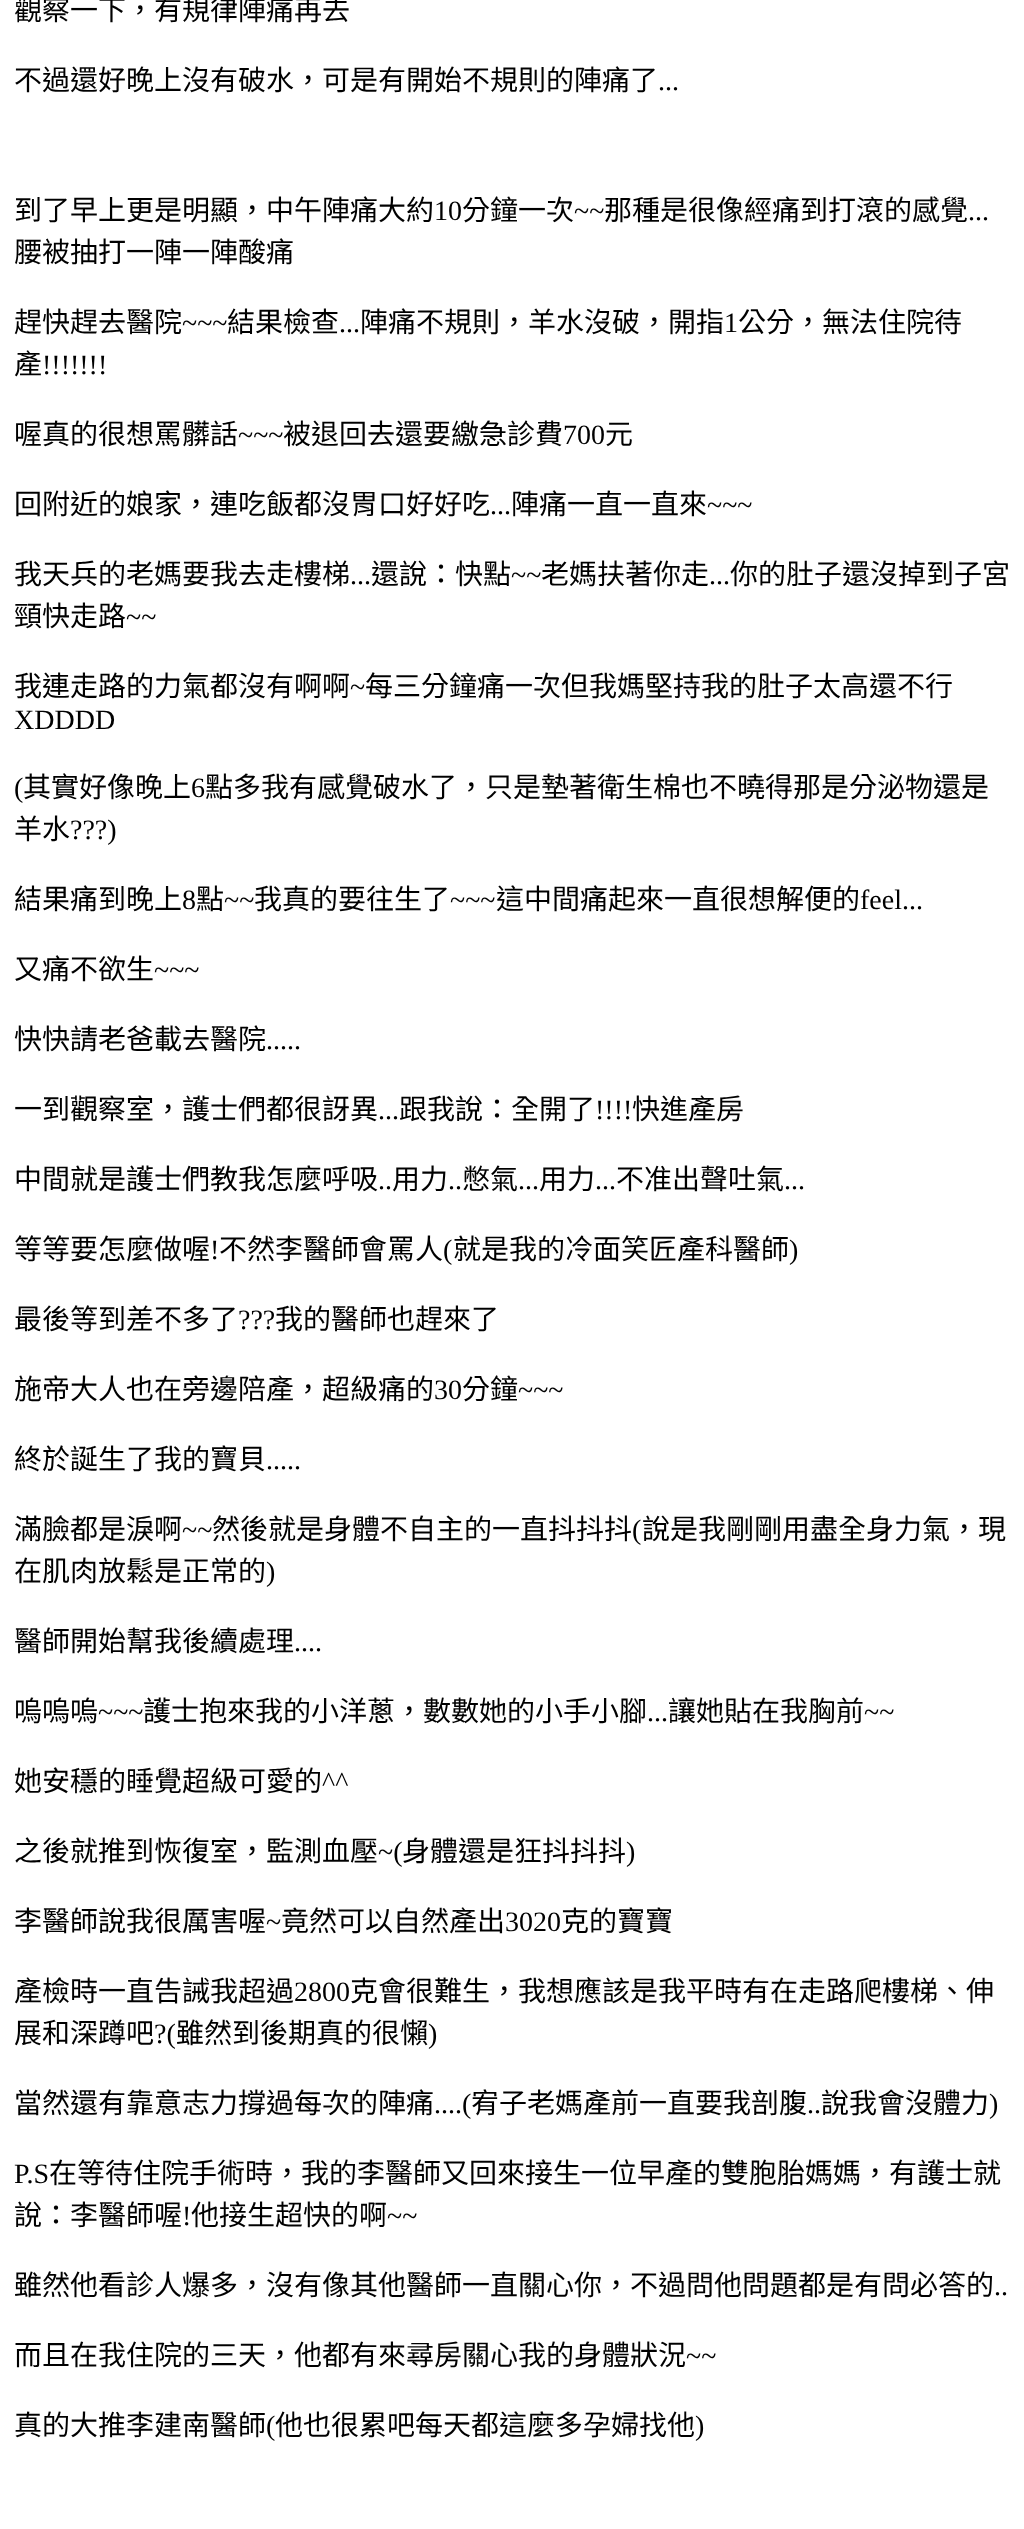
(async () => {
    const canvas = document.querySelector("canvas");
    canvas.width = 1024;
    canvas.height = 2529;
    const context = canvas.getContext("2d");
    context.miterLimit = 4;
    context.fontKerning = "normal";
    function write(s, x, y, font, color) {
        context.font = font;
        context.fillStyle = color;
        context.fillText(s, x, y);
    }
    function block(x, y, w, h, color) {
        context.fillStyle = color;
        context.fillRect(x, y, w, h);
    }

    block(0, 0, 1024, 2529, "rgb(255, 255, 255)");
    write("觀察一下，有規律陣痛再去", 14, 20, "28px Noto Sans CJK TC", "rgb(0, 0, 0)");
    write("不過還好晚上沒有破水，可是有開始不規則的陣痛了", 14, 90, "28px Noto Sans CJK TC", "rgb(0, 0, 0)");
    write("...", 658, 90, "28px Liberation Serif", "rgb(0, 0, 0)");
    write("到了早上更是明顯，中午陣痛大約", 14, 220, "28px Noto Sans CJK TC", "rgb(0, 0, 0)");
    write("10", 434, 220, "28px Liberation Serif", "rgb(0, 0, 0)");
    write("分鐘一次", 462, 220, "28px Noto Sans CJK TC", "rgb(0, 0, 0)");
    write("~~", 574, 220, "28px Liberation Serif", "rgb(0, 0, 0)");
    write("那種是很像經痛到打滾的感覺", 604, 220, "28px Noto Sans CJK TC", "rgb(0, 0, 0)");
    write("...", 968, 220, "28px Liberation Serif", "rgb(0, 0, 0)");
    write("腰被抽打一陣一陣酸痛", 14, 262, "28px Noto Sans CJK TC", "rgb(0, 0, 0)");
    write("趕快趕去醫院", 14, 332, "28px Noto Sans CJK TC", "rgb(0, 0, 0)");
    write("~~~", 182, 332, "28px Liberation Serif", "rgb(0, 0, 0)");
    write("結果檢查", 227, 332, "28px Noto Sans CJK TC", "rgb(0, 0, 0)");
    write("陣痛不規則，羊水沒破，開指", 360, 332, "28px Noto Sans CJK TC", "rgb(0, 0, 0)");
    write("1", 724, 332, "28px Liberation Serif", "rgb(0, 0, 0)");
    write("公分，無法住院待", 738, 332, "28px Noto Sans CJK TC", "rgb(0, 0, 0)");
    write("...", 339, 332, "28px Liberation Serif", "rgb(0, 0, 0)");
    write("產", 14, 374, "28px Noto Sans CJK TC", "rgb(0, 0, 0)");
    write("!!!!!!!", 42, 374, "28px Liberation Serif", "rgb(0, 0, 0)");
    write("喔真的很想罵髒話", 14, 444, "28px Noto Sans CJK TC", "rgb(0, 0, 0)");
    write("~~~", 238, 444, "28px Liberation Serif", "rgb(0, 0, 0)");
    write("被退回去還要繳急診費", 283, 444, "28px Noto Sans CJK TC", "rgb(0, 0, 0)");
    write("700", 563, 444, "28px Liberation Serif", "rgb(0, 0, 0)");
    write("元", 605, 444, "28px Noto Sans CJK TC", "rgb(0, 0, 0)");
    write("回附近的娘家，連吃飯都沒胃口好好吃", 14, 514, "28px Noto Sans CJK TC", "rgb(0, 0, 0)");
    write("陣痛一直一直來", 511, 514, "28px Noto Sans CJK TC", "rgb(0, 0, 0)");
    write("~~~", 707, 514, "28px Liberation Serif", "rgb(0, 0, 0)");
    write("...", 490, 514, "28px Liberation Serif", "rgb(0, 0, 0)");
    write("我天兵的老媽要我去走樓梯", 14, 584, "28px Noto Sans CJK TC", "rgb(0, 0, 0)");
    write("還說：快點", 371, 584, "28px Noto Sans CJK TC", "rgb(0, 0, 0)");
    write("~~", 511, 584, "28px Liberation Serif", "rgb(0, 0, 0)");
    write("老媽扶著你走", 541, 584, "28px Noto Sans CJK TC", "rgb(0, 0, 0)");
    write("你的肚子還沒掉到子宮", 730, 584, "28px Noto Sans CJK TC", "rgb(0, 0, 0)");
    write("...", 350, 584, "28px Liberation Serif", "rgb(0, 0, 0)");
    write("...", 709, 584, "28px Liberation Serif", "rgb(0, 0, 0)");
    write("頸快走路", 14, 626, "28px Noto Sans CJK TC", "rgb(0, 0, 0)");
    write("~~", 126, 626, "28px Liberation Serif", "rgb(0, 0, 0)");
    write("我連走路的力氣都沒有啊啊", 14, 696, "28px Noto Sans CJK TC", "rgb(0, 0, 0)");
    write("~", 350, 696, "28px Liberation Serif", "rgb(0, 0, 0)");
    write("每三分鐘痛一次但我媽堅持我的肚子太高還不行", 365, 696, "28px Noto Sans CJK TC", "rgb(0, 0, 0)");
    write("XDDDD", 14, 729, "28px Liberation Serif", "rgb(0, 0, 0)");
    write("(", 14, 797, "28px Liberation Serif", "rgb(0, 0, 0)");
    write("其實好像晚上", 23, 797, "28px Noto Sans CJK TC", "rgb(0, 0, 0)");
    write("6", 191, 797, "28px Liberation Serif", "rgb(0, 0, 0)");
    write("點多我有感覺破水了，只是墊著衛生棉也不曉得那是分泌物還是", 205, 797, "28px Noto Sans CJK TC", "rgb(0, 0, 0)");
    write("羊水", 14, 839, "28px Noto Sans CJK TC", "rgb(0, 0, 0)");
    write("???)", 70, 839, "28px Liberation Serif", "rgb(0, 0, 0)");
    write("結果痛到晚上", 14, 909, "28px Noto Sans CJK TC", "rgb(0, 0, 0)");
    write("8", 182, 909, "28px Liberation Serif", "rgb(0, 0, 0)");
    write("點", 196, 909, "28px Noto Sans CJK TC", "rgb(0, 0, 0)");
    write("~~", 224, 909, "28px Liberation Serif", "rgb(0, 0, 0)");
    write("我真的要往生了", 254, 909, "28px Noto Sans CJK TC", "rgb(0, 0, 0)");
    write("~~~", 450, 909, "28px Liberation Serif", "rgb(0, 0, 0)");
    write("這中間痛起來一直很想解便的", 496, 909, "28px Noto Sans CJK TC", "rgb(0, 0, 0)");
    write("feel...", 860, 909, "28px Liberation Serif", "rgb(0, 0, 0)");
    write("又痛不欲生", 14, 979, "28px Noto Sans CJK TC", "rgb(0, 0, 0)");
    write("~~~", 154, 979, "28px Liberation Serif", "rgb(0, 0, 0)");
    write("快快請老爸載去醫院", 14, 1049, "28px Noto Sans CJK TC", "rgb(0, 0, 0)");
    write(".....", 266, 1049, "28px Liberation Serif", "rgb(0, 0, 0)");
    write("一到觀察室，護士們都很訝異", 14, 1119, "28px Noto Sans CJK TC", "rgb(0, 0, 0)");
    write("...", 378, 1119, "28px Liberation Serif", "rgb(0, 0, 0)");
    write("跟我說：全開了", 399, 1119, "28px Noto Sans CJK TC", "rgb(0, 0, 0)");
    write("!!!!", 595, 1119, "28px Liberation Serif", "rgb(0, 0, 0)");
    write("快進產房", 632, 1119, "28px Noto Sans CJK TC", "rgb(0, 0, 0)");
    write("中間就是護士們教我怎麼呼吸", 14, 1189, "28px Noto Sans CJK TC", "rgb(0, 0, 0)");
    write("..", 378, 1189, "28px Liberation Serif", "rgb(0, 0, 0)");
    write("用力", 392, 1189, "28px Noto Sans CJK TC", "rgb(0, 0, 0)");
    write("..", 448, 1189, "28px Liberation Serif", "rgb(0, 0, 0)");
    write("憋氣", 462, 1189, "28px Noto Sans CJK TC", "rgb(0, 0, 0)");
    write("...", 518, 1189, "28px Liberation Serif", "rgb(0, 0, 0)");
    write("用力", 539, 1189, "28px Noto Sans CJK TC", "rgb(0, 0, 0)");
    write("...", 595, 1189, "28px Liberation Serif", "rgb(0, 0, 0)");
    write("不准出聲吐氣", 616, 1189, "28px Noto Sans CJK TC", "rgb(0, 0, 0)");
    write("...", 784, 1189, "28px Liberation Serif", "rgb(0, 0, 0)");
    write("等等要怎麼做喔", 14, 1259, "28px Noto Sans CJK TC", "rgb(0, 0, 0)");
    write("!", 210, 1259, "28px Liberation Serif", "rgb(0, 0, 0)");
    write("不然李醫師會罵人", 219, 1259, "28px Noto Sans CJK TC", "rgb(0, 0, 0)");
    write("(", 443, 1259, "28px Liberation Serif", "rgb(0, 0, 0)");
    write("就是我的冷面笑匠產科醫師", 453, 1259, "28px Noto Sans CJK TC", "rgb(0, 0, 0)");
    write(")", 789, 1259, "28px Liberation Serif", "rgb(0, 0, 0)");
    write("最後等到差不多了", 14, 1329, "28px Noto Sans CJK TC", "rgb(0, 0, 0)");
    write("???", 238, 1329, "28px Liberation Serif", "rgb(0, 0, 0)");
    write("我的醫師也趕來了", 275, 1329, "28px Noto Sans CJK TC", "rgb(0, 0, 0)");
    write("施帝大人也在旁邊陪產，超級痛的", 14, 1399, "28px Noto Sans CJK TC", "rgb(0, 0, 0)");
    write("30", 434, 1399, "28px Liberation Serif", "rgb(0, 0, 0)");
    write("分鐘", 462, 1399, "28px Noto Sans CJK TC", "rgb(0, 0, 0)");
    write("~~~", 518, 1399, "28px Liberation Serif", "rgb(0, 0, 0)");
    write("終於誕生了我的寶貝", 14, 1469, "28px Noto Sans CJK TC", "rgb(0, 0, 0)");
    write(".....", 266, 1469, "28px Liberation Serif", "rgb(0, 0, 0)");
    write("滿臉都是淚啊", 14, 1539, "28px Noto Sans CJK TC", "rgb(0, 0, 0)");
    write("~~", 182, 1539, "28px Liberation Serif", "rgb(0, 0, 0)");
    write("然後就是身體不自主的一直抖抖抖", 212, 1539, "28px Noto Sans CJK TC", "rgb(0, 0, 0)");
    write("(", 632, 1539, "28px Liberation Serif", "rgb(0, 0, 0)");
    write("說是我剛剛用盡全身力氣，現", 642, 1539, "28px Noto Sans CJK TC", "rgb(0, 0, 0)");
    write("在肌肉放鬆是正常的", 14, 1581, "28px Noto Sans CJK TC", "rgb(0, 0, 0)");
    write(")", 266, 1581, "28px Liberation Serif", "rgb(0, 0, 0)");
    write("醫師開始幫我後續處理", 14, 1651, "28px Noto Sans CJK TC", "rgb(0, 0, 0)");
    write("....", 294, 1651, "28px Liberation Serif", "rgb(0, 0, 0)");
    write("嗚嗚嗚", 14, 1721, "28px Noto Sans CJK TC", "rgb(0, 0, 0)");
    write("~~~", 98, 1721, "28px Liberation Serif", "rgb(0, 0, 0)");
    write("護士抱來我的小洋蔥，數數她的小手小腳", 143, 1721, "28px Noto Sans CJK TC", "rgb(0, 0, 0)");
    write("讓她貼在我胸前", 668, 1721, "28px Noto Sans CJK TC", "rgb(0, 0, 0)");
    write("~~", 864, 1721, "28px Liberation Serif", "rgb(0, 0, 0)");
    write("...", 647, 1721, "28px Liberation Serif", "rgb(0, 0, 0)");
    write("她安穩的睡覺超級可愛的", 14, 1791, "28px Noto Sans CJK TC", "rgb(0, 0, 0)");
    write("^^", 322, 1791, "28px Liberation Serif", "rgb(0, 0, 0)");
    write("之後就推到恢復室，監測血壓", 14, 1861, "28px Noto Sans CJK TC", "rgb(0, 0, 0)");
    write("~(", 378, 1861, "28px Liberation Serif", "rgb(0, 0, 0)");
    write("身體還是狂抖抖抖", 402, 1861, "28px Noto Sans CJK TC", "rgb(0, 0, 0)");
    write(")", 626, 1861, "28px Liberation Serif", "rgb(0, 0, 0)");
    write("李醫師說我很厲害喔", 14, 1931, "28px Noto Sans CJK TC", "rgb(0, 0, 0)");
    write("~", 266, 1931, "28px Liberation Serif", "rgb(0, 0, 0)");
    write("竟然可以自然產出", 281, 1931, "28px Noto Sans CJK TC", "rgb(0, 0, 0)");
    write("3020", 505, 1931, "28px Liberation Serif", "rgb(0, 0, 0)");
    write("克的寶寶", 561, 1931, "28px Noto Sans CJK TC", "rgb(0, 0, 0)");
    write("產檢時一直告誡我超過", 14, 2001, "28px Noto Sans CJK TC", "rgb(0, 0, 0)");
    write("2800", 294, 2001, "28px Liberation Serif", "rgb(0, 0, 0)");
    write("克會很難生，我想應該是我平時有在走路爬樓梯、伸", 350, 2001, "28px Noto Sans CJK TC", "rgb(0, 0, 0)");
    write("展和深蹲吧", 14, 2043, "28px Noto Sans CJK TC", "rgb(0, 0, 0)");
    write("?(", 154, 2043, "28px Liberation Serif", "rgb(0, 0, 0)");
    write("雖然到後期真的很懶", 176, 2043, "28px Noto Sans CJK TC", "rgb(0, 0, 0)");
    write(")", 428, 2043, "28px Liberation Serif", "rgb(0, 0, 0)");
    write("當然還有靠意志力撐過每次的陣痛", 14, 2113, "28px Noto Sans CJK TC", "rgb(0, 0, 0)");
    write("....(", 434, 2113, "28px Liberation Serif", "rgb(0, 0, 0)");
    write("宥子老媽產前一直要我剖腹", 471, 2113, "28px Noto Sans CJK TC", "rgb(0, 0, 0)");
    write("..", 807, 2113, "28px Liberation Serif", "rgb(0, 0, 0)");
    write("說我會沒體力", 821, 2113, "28px Noto Sans CJK TC", "rgb(0, 0, 0)");
    write(")", 989, 2113, "28px Liberation Serif", "rgb(0, 0, 0)");
    write("P.S", 14, 2183, "28px Liberation Serif", "rgb(0, 0, 0)");
    write("在等待住院手術時，我的李醫師又回來接生一位早產的雙胞胎媽媽，有護士就", 49, 2183, "28px Noto Sans CJK TC", "rgb(0, 0, 0)");
    write("說：李醫師喔", 14, 2225, "28px Noto Sans CJK TC", "rgb(0, 0, 0)");
    write("!", 182, 2225, "28px Liberation Serif", "rgb(0, 0, 0)");
    write("他接生超快的啊", 191, 2225, "28px Noto Sans CJK TC", "rgb(0, 0, 0)");
    write("~~", 387, 2225, "28px Liberation Serif", "rgb(0, 0, 0)");
    write("雖然他看診人爆多，沒有像其他醫師一直關心你，不過問他問題都是有問必答的", 14, 2295, "28px Noto Sans CJK TC", "rgb(0, 0, 0)");
    write("..", 994, 2295, "28px Liberation Serif", "rgb(0, 0, 0)");
    write("而且在我住院的三天，他都有來尋房關心我的身體狀況", 14, 2365, "28px Noto Sans CJK TC", "rgb(0, 0, 0)");
    write("~~", 686, 2365, "28px Liberation Serif", "rgb(0, 0, 0)");
    write("真的大推李建南醫師", 14, 2435, "28px Noto Sans CJK TC", "rgb(0, 0, 0)");
    write("(", 266, 2435, "28px Liberation Serif", "rgb(0, 0, 0)");
    write("他也很累吧每天都這麼多孕婦找他", 275, 2435, "28px Noto Sans CJK TC", "rgb(0, 0, 0)");
    write(")", 695, 2435, "28px Liberation Serif", "rgb(0, 0, 0)");
})();
